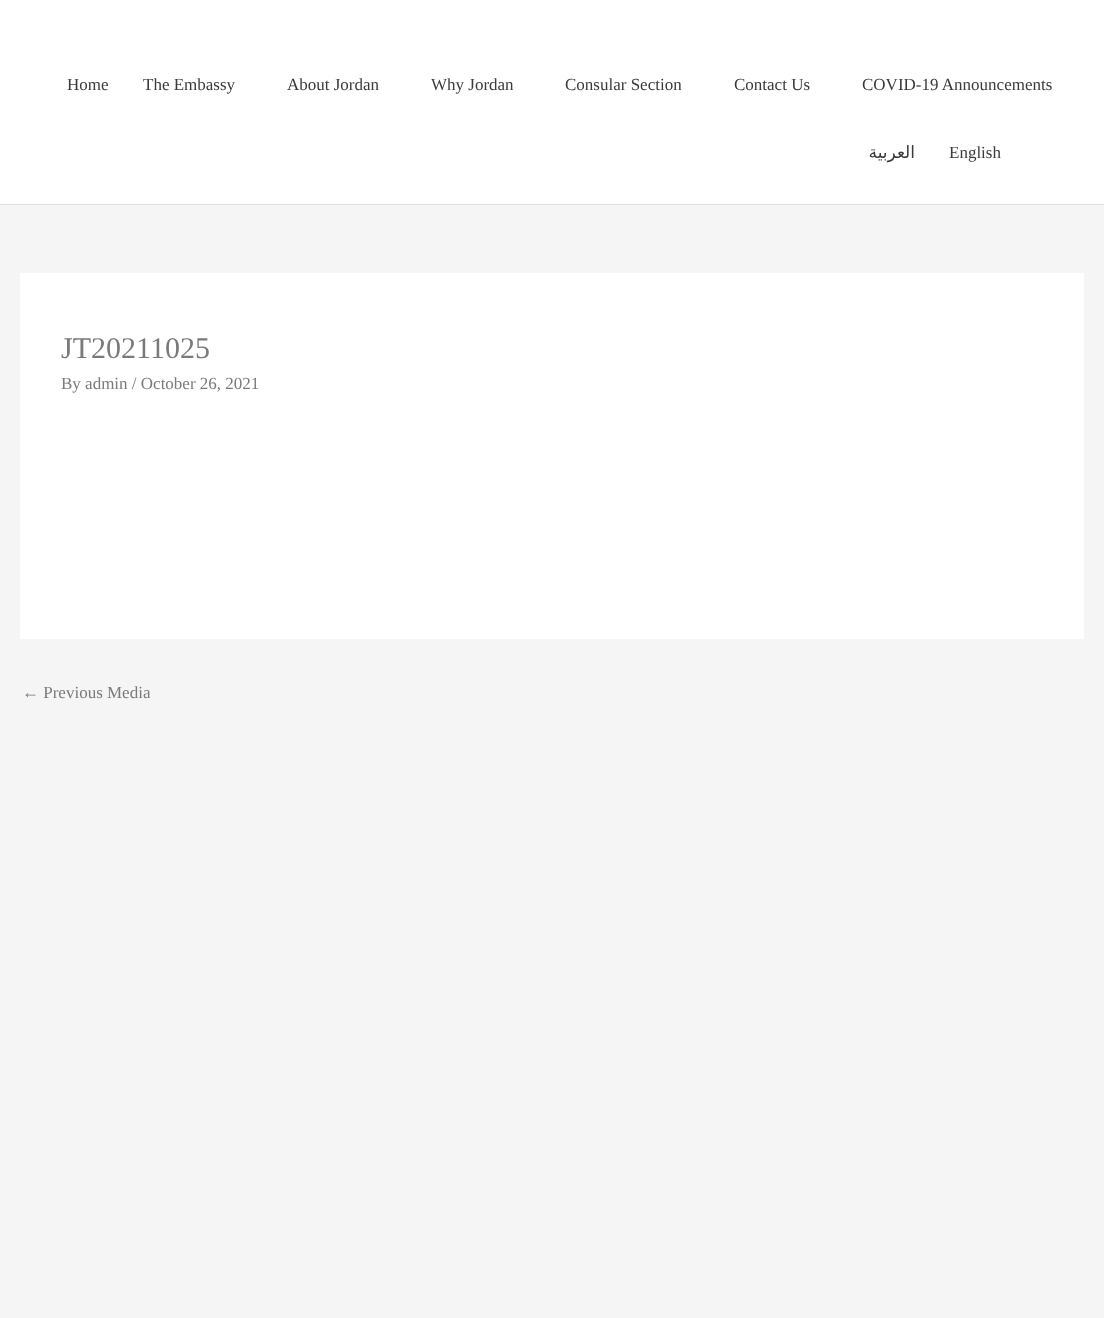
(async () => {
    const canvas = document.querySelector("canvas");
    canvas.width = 1104;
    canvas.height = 1318;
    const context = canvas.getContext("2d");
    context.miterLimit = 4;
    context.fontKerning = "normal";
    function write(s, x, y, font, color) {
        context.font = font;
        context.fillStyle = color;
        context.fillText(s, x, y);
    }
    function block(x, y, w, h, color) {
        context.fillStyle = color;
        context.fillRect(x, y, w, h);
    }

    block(0, 0, 1104, 1318, "rgb(245, 245, 245)");
    block(0, 0, 1104, 204, "rgb(255, 255, 255)");
    block(0, 204, 1104, 1, "rgb(221, 221, 221)");
    write("Home", 67, 90, "17px Liberation Serif", "rgb(58, 58, 58)");
    write("The Embassy", 143, 90, "17px Liberation Serif", "rgb(58, 58, 58)");
    write("About Jordan", 287, 90, "17px Liberation Serif", "rgb(58, 58, 58)");
    write("Why Jordan", 431, 90, "17px Liberation Serif", "rgb(58, 58, 58)");
    write("Consular Section", 565, 90, "17px Liberation Serif", "rgb(58, 58, 58)");
    write("Contact Us", 734, 90, "17px Liberation Serif", "rgb(58, 58, 58)");
    write("COVID-19 Announcements", 862, 90, "17px Liberation Serif", "rgb(58, 58, 58)");
    context.direction = "rtl";
    write("العربية", 915, 158, "17px DejaVu Sans", "rgb(58, 58, 58)");
    context.direction = "ltr";
    write("English", 949, 158, "17px Liberation Serif", "rgb(58, 58, 58)");
    block(20, 273, 1064, 366, "rgb(255, 255, 255)");
    write("JT20211025", 61, 358, "30px Liberation Serif", "rgb(122, 122, 122)");
    write("By admin / October 26, 2021", 61, 389, "17px Liberation Serif", "rgb(122, 122, 122)");
    write("← Previous Media", 22, 698, "17px Liberation Serif", "rgb(122, 122, 122)");
})();
